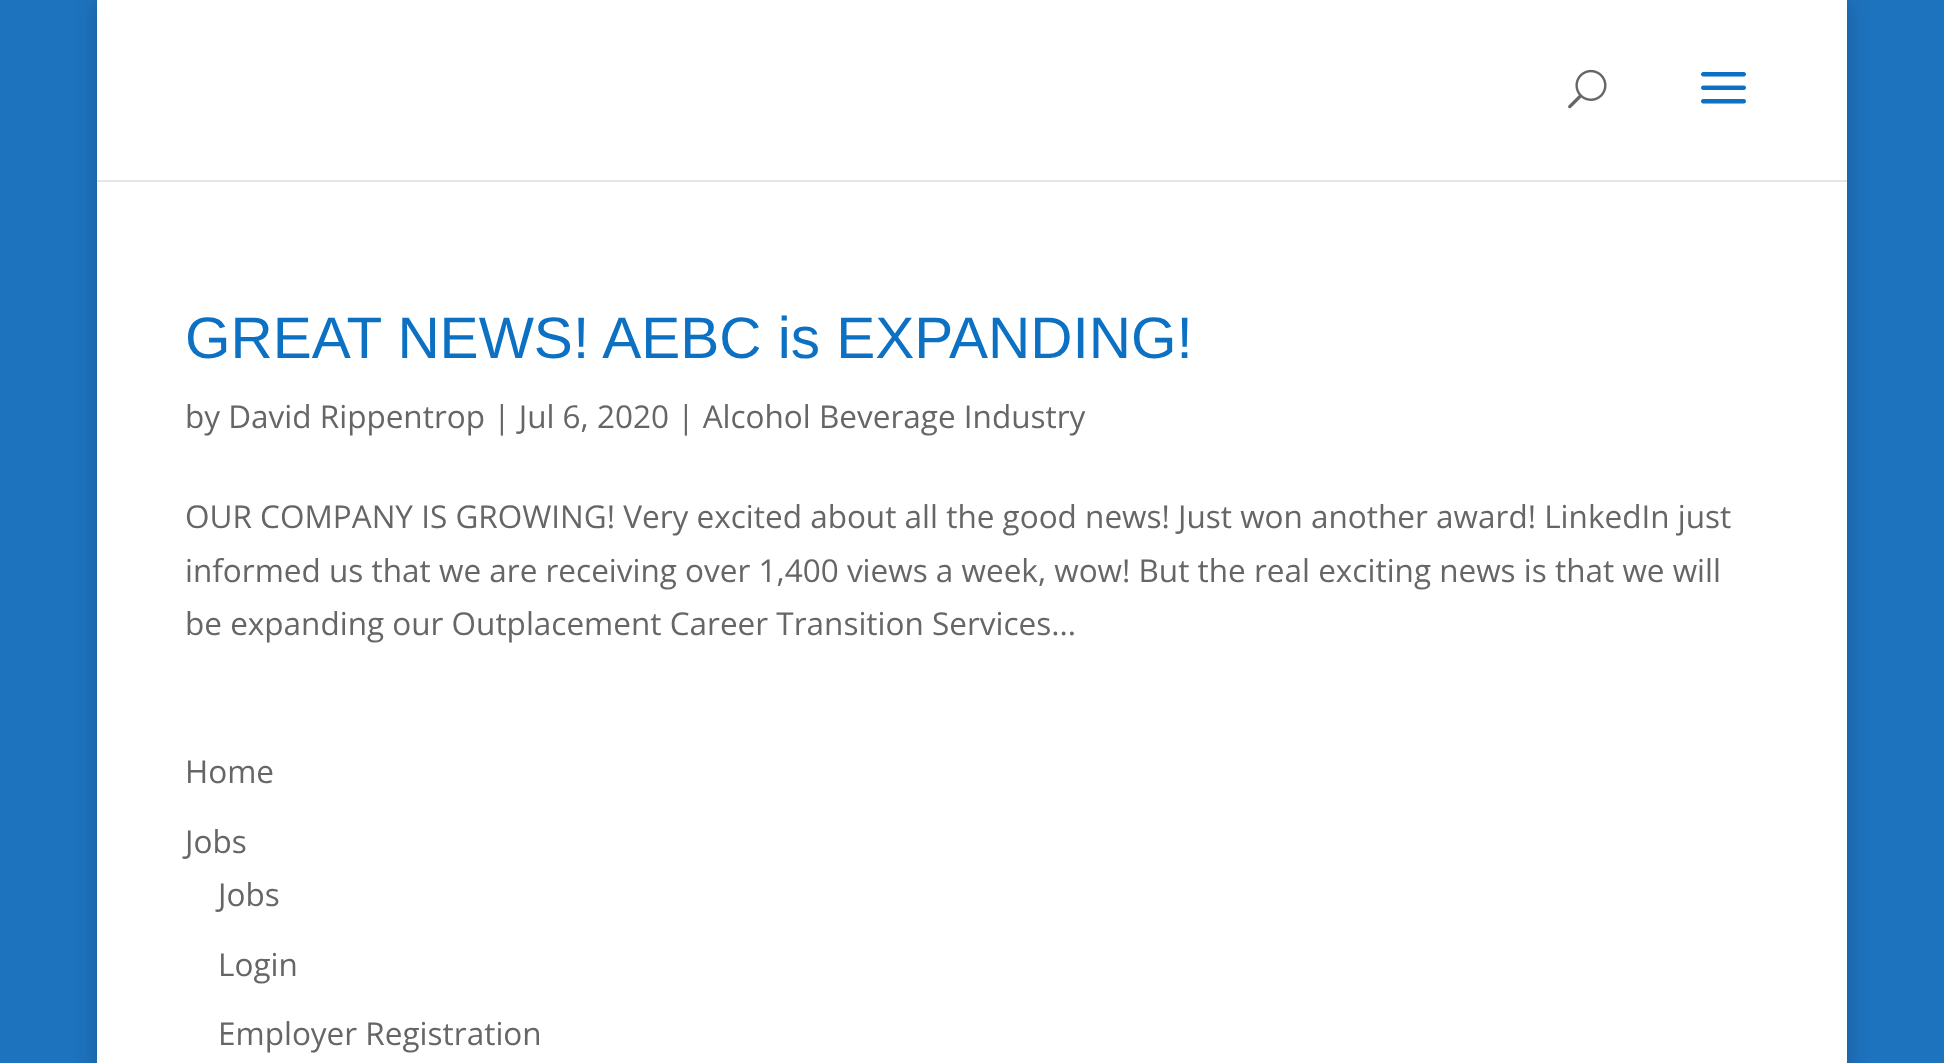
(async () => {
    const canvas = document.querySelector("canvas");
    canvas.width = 1944;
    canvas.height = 1063;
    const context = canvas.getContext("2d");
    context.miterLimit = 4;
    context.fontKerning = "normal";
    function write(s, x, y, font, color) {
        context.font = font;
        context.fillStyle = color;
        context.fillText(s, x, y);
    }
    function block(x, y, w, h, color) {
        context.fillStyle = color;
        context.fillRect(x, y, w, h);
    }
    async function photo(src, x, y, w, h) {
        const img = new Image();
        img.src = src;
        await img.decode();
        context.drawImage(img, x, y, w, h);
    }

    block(0, 0, 1944, 1063, "rgb(30, 115, 190)");
    context.fillStyle = "rgba(0, 0, 0, 0.2)";
    context.filter = "blur(11px)";
    context.beginPath();
    context.rect(97, 0, 1750, 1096);
    context.fill();
    context.filter = "none";
    block(97, 180, 1750, 2, "rgb(230, 230, 230)");
    block(97, 0, 1750, 180, "rgb(255, 255, 255)");
    await photo("media/1.png", 1568, 69, 39, 40);
    await photo("media/2.png", 1701, 72, 45, 32);
    block(97, 182, 1750, 881, "rgb(255, 255, 255)");
    write("GREAT NEWS! AEBC is EXPANDING!", 185, 358, "58.5px Liberation Sans", "rgb(12, 113, 195)");
    write("by David Rippentrop | Jul 6, 2020 | Alcohol Beverage Industry", 185, 428, "31.5px Open Sans", "rgb(102, 102, 102)");
    write("OUR COMPANY IS GROWING! Very excited about all the good news! Just won another award! LinkedIn just", 185, 528, "31.5px Open Sans", "rgb(102, 102, 102)");
    write("informed us that we are receiving over 1,400 views a week, wow! But the real exciting news is that we will", 185, 582, "31.5px Open Sans", "rgb(102, 102, 102)");
    write("be expanding our Outplacement Career Transition Services...", 185, 635, "31.5px Open Sans", "rgb(102, 102, 102)");
    write("Home", 185, 783, "31.5px Open Sans", "rgb(102, 102, 102)");
    write("Jobs", 185, 853, "31.5px Open Sans", "rgb(102, 102, 102)");
    write("Jobs", 218, 906, "31.5px Open Sans", "rgb(102, 102, 102)");
    write("Login", 218, 976, "31.5px Open Sans", "rgb(102, 102, 102)");
    write("Employer Registration", 218, 1045, "31.5px Open Sans", "rgb(102, 102, 102)");
})();
